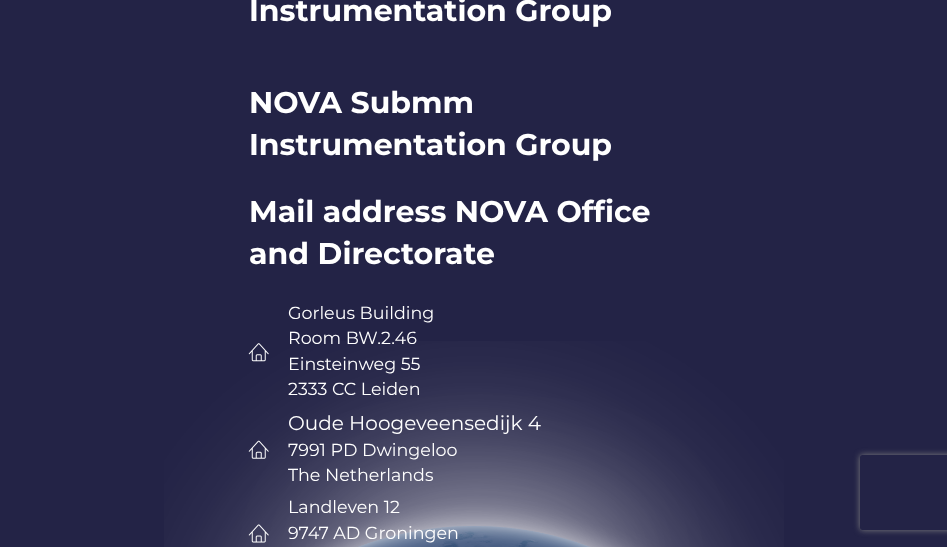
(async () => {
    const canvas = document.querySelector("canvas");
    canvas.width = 947;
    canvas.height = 547;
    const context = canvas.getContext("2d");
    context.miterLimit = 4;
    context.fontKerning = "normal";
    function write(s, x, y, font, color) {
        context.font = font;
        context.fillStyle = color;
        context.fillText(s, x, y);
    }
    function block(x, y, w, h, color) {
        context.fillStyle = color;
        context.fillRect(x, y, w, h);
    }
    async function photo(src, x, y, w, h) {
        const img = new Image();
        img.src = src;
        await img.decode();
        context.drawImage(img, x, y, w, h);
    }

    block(0, 0, 947, 547, "rgb(35, 35, 70)");
    await photo("media/1.png", 164, 341, 620, 206);
    write("Instrumentation Group", 249, 21, "bold 30px Montserrat", "rgb(255, 255, 255)");
    write("NOVA Submm", 249, 113, "bold 30px Montserrat", "rgb(255, 255, 255)");
    write("Instrumentation Group", 249, 155, "bold 30px Montserrat", "rgb(255, 255, 255)");
    write("Mail address NOVA Office", 249, 222, "bold 30px Montserrat", "rgb(255, 255, 255)");
    write("and Directorate", 249, 264, "bold 30px Montserrat", "rgb(255, 255, 255)");
    await photo("media/2.png", 248, 343, 21, 19);
    write("Gorleus Building", 288, 319, "17.5px Montserrat", "rgb(255, 255, 255)");
    write("Room BW.2.46", 288, 344, "17.5px Montserrat", "rgb(255, 255, 255)");
    write("Einsteinweg 55", 288, 370, "17.5px Montserrat", "rgb(255, 255, 255)");
    write("2333 CC Leiden", 288, 395, "17.5px Montserrat", "rgb(255, 255, 255)");
    await photo("media/3.png", 248, 440, 21, 19);
    write("Oude Hoogeveensedijk 4", 288, 430, "20px Montserrat", "rgb(255, 255, 255)");
    write("7991 PD Dwingeloo", 288, 456, "17.5px Montserrat", "rgb(255, 255, 255)");
    write("The Netherlands", 288, 481, "17.5px Montserrat", "rgb(255, 255, 255)");
    await photo("media/4.png", 248, 524, 21, 19);
    write("Landleven 12", 288, 513, "17.5px Montserrat", "rgb(255, 255, 255)");
    write("9747 AD Groningen", 288, 539, "17.5px Montserrat", "rgb(255, 255, 255)");
    context.save();
    context.beginPath();
    context.moveTo(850, 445);
    context.lineTo(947, 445);
    context.lineTo(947, 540);
    context.lineTo(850, 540);
    context.closePath();
    context.moveTo(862.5, 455);
    context.lineTo(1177.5, 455);
    context.bezierCurveTo(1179, 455, 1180, 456, 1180, 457.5);
    context.lineTo(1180, 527.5);
    context.bezierCurveTo(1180, 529, 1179, 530, 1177.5, 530);
    context.lineTo(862.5, 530);
    context.bezierCurveTo(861, 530, 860, 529, 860, 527.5);
    context.lineTo(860, 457.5);
    context.bezierCurveTo(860, 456, 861, 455, 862.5, 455);
    context.closePath();
    context.clip("evenodd");
    context.fillStyle = "rgb(128, 128, 128)";
    context.filter = "blur(3px)";
    context.beginPath();
    context.roundRect(860, 455, 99, 75, 2.5);
    context.fill();
    context.filter = "none";
    context.restore();
})();
